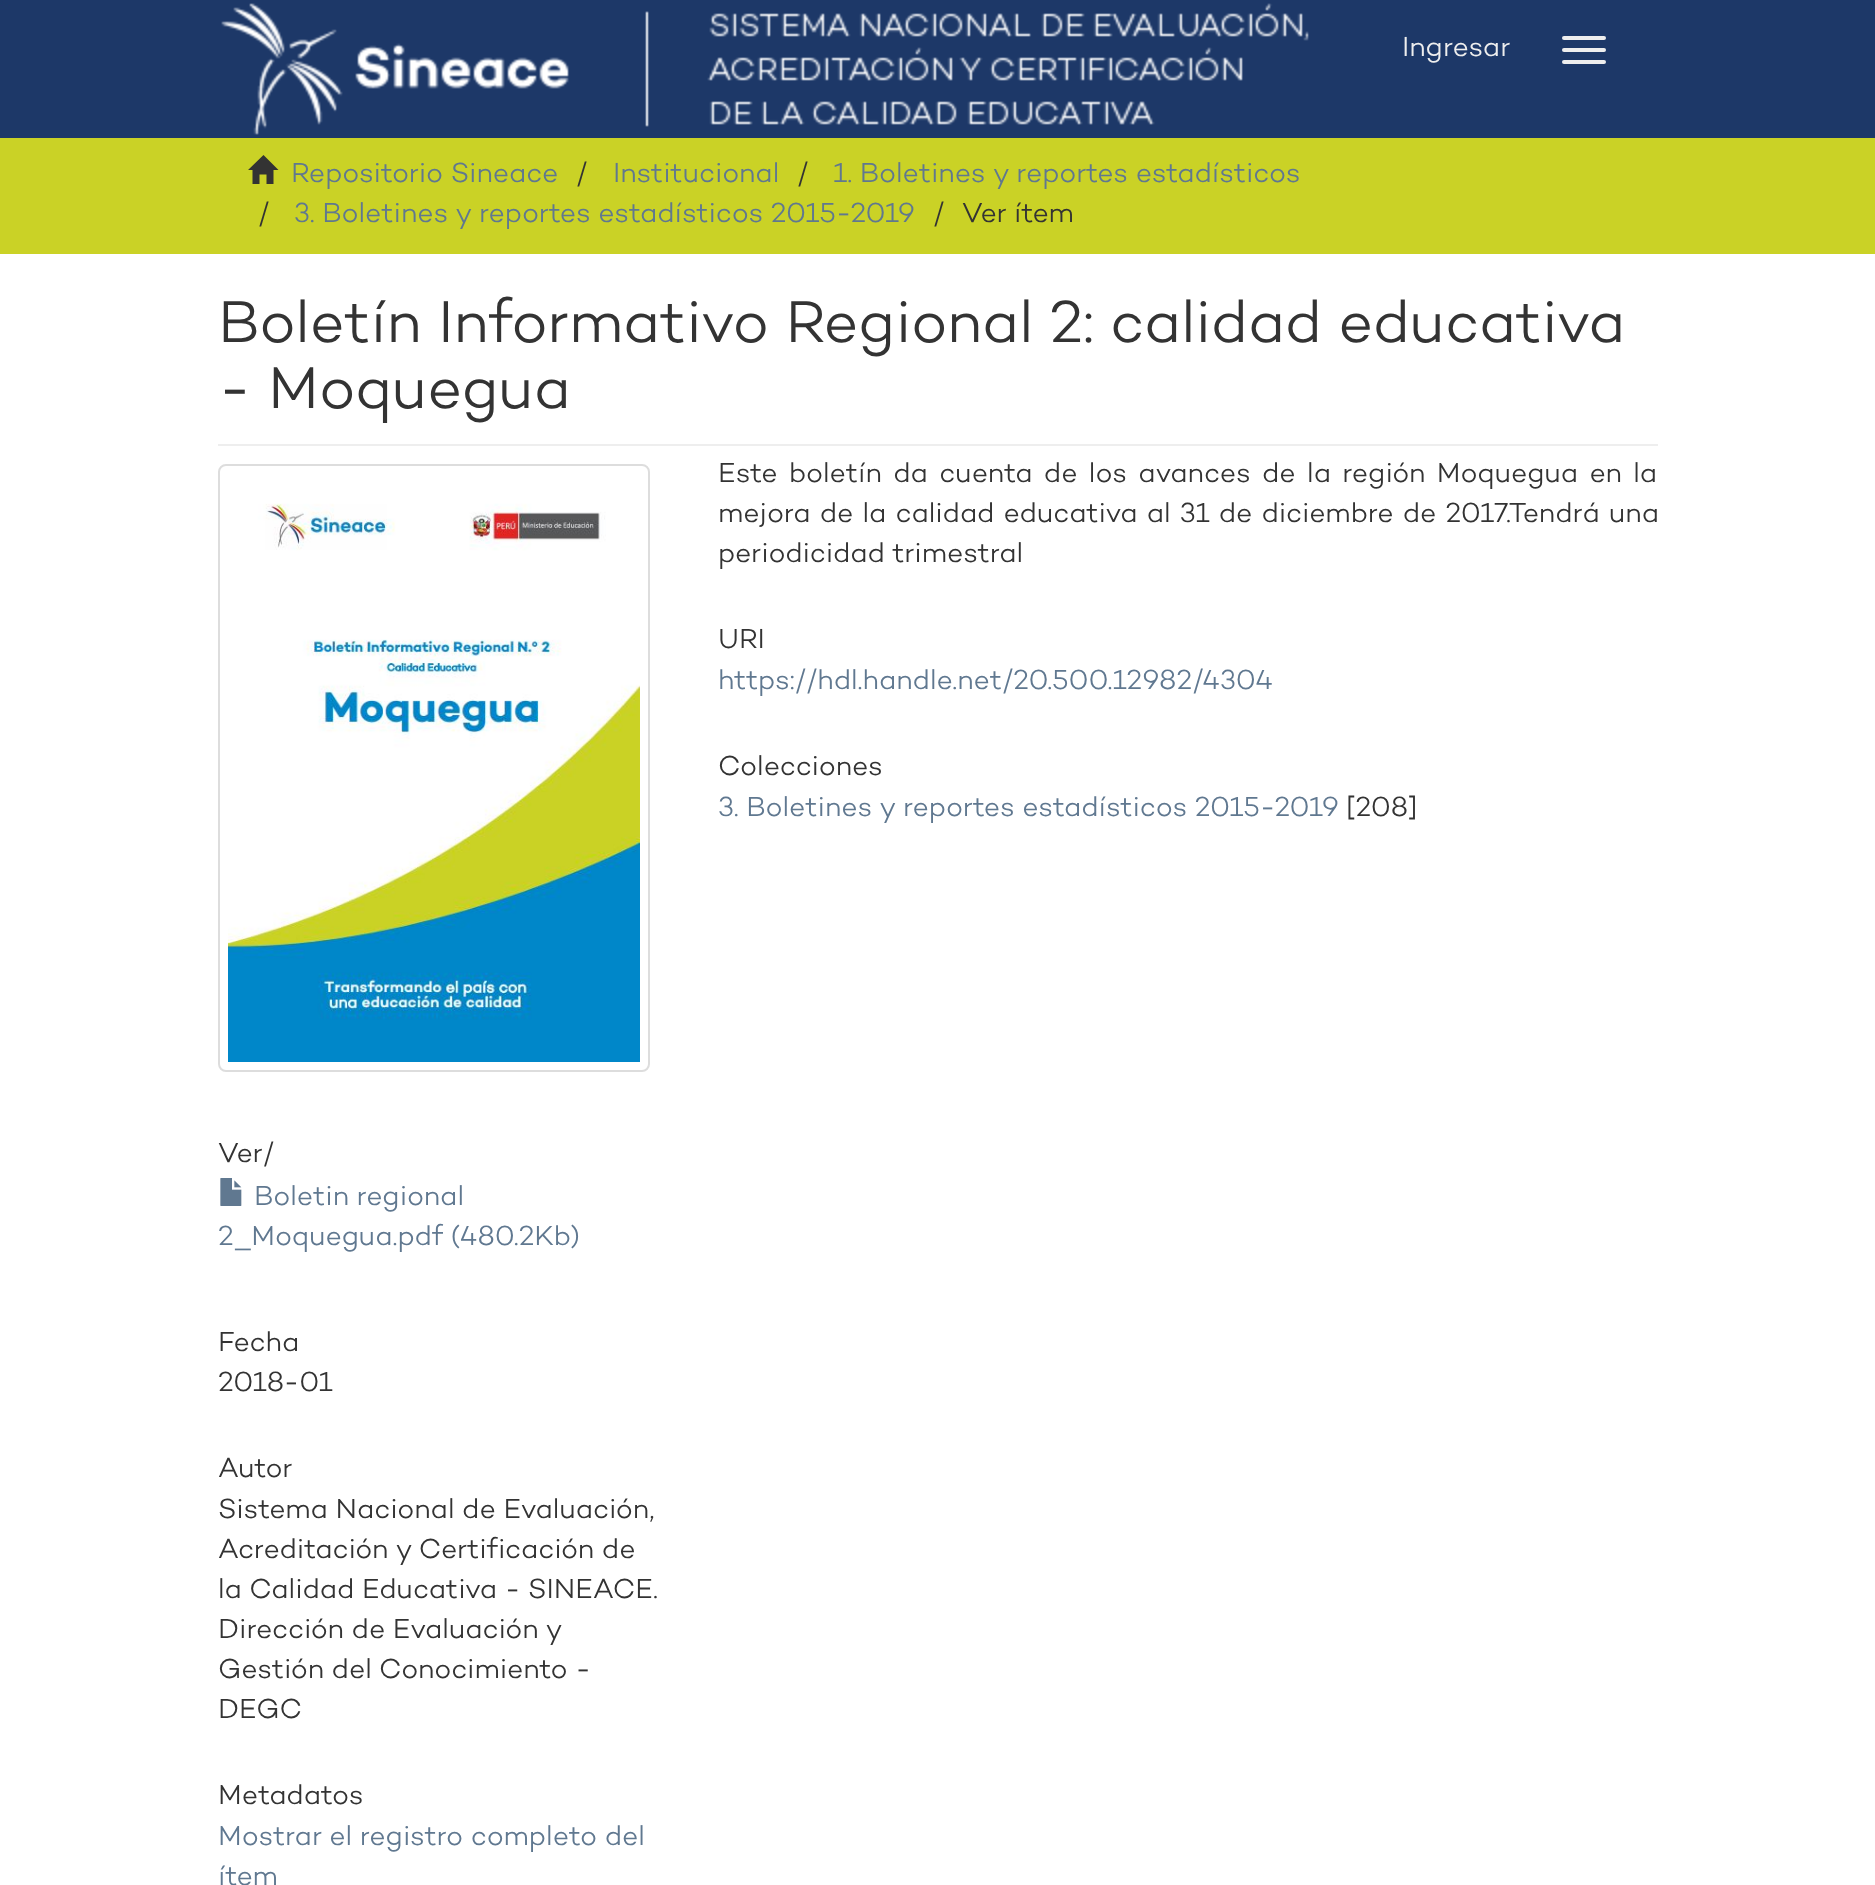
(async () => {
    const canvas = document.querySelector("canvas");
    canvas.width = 1875;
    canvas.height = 1885;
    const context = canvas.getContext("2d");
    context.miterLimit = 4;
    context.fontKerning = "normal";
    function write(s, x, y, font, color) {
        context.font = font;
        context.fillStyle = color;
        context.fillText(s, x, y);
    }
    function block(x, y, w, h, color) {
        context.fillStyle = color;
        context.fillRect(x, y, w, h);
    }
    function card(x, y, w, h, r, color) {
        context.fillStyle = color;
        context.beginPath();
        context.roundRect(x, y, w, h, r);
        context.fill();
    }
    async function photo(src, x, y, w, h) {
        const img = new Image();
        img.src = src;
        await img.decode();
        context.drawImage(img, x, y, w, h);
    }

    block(0, 0, 1875, 1885, "rgb(255, 255, 255)");
    block(0, 0, 1875, 138, "rgb(29, 56, 104)");
    await photo("media/1.png", 221, 3, 1088, 132);
    write("Ingresar", 1402, 56, "300 28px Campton", "rgb(238, 238, 238)");
    card(1562, 36, 44, 4, 2, "rgb(238, 238, 238)");
    card(1562, 48, 44, 4, 2, "rgb(238, 238, 238)");
    card(1562, 60, 44, 4, 2, "rgb(238, 238, 238)");
    block(0, 138, 1875, 116, "rgb(202, 210, 38)");
    context.fillStyle = "rgb(51, 51, 51)";
    context.beginPath();
    context.moveTo(248, 170);
    context.lineTo(263.5, 155);
    context.lineTo(278.5, 170);
    context.lineTo(273.5, 170);
    context.lineTo(273.5, 184);
    context.lineTo(266.5, 184);
    context.lineTo(266.5, 174.5);
    context.lineTo(259.5, 174.5);
    context.lineTo(259.5, 184);
    context.lineTo(252.5, 184);
    context.lineTo(252.5, 170);
    context.closePath();
    context.fill();
    write("Repositorio Sineace", 291, 182, "300 28px Campton", "rgb(96, 120, 144)");
    write("/", 576, 182, "300 28px Campton", "rgb(51, 51, 51)");
    write("Institucional", 613, 182, "300 28px Campton", "rgb(96, 120, 144)");
    write("/", 797, 182, "300 28px Campton", "rgb(51, 51, 51)");
    write("1. Boletines y reportes estadísticos", 833, 182, "300 28px Campton", "rgb(96, 120, 144)");
    write("/", 258, 222, "300 28px Campton", "rgb(51, 51, 51)");
    write("3. Boletines y reportes estadísticos 2015-2019", 294, 222, "300 28px Campton", "rgb(96, 120, 144)");
    write("/", 933, 222, "300 28px Campton", "rgb(51, 51, 51)");
    write("Ver ítem", 962, 222, "300 28px Campton", "rgb(51, 51, 51)");
    block(218, 444, 1440, 2, "rgb(238, 238, 238)");
    write("Boletín Informativo Regional 2: calidad educativa", 218, 342, "300 60px Campton", "rgb(51, 51, 51)");
    write("- Moquegua", 218, 408, "300 60px Campton", "rgb(51, 51, 51)");
    context.wordSpacing = "3.75px";
    write("Este boletín da cuenta de los avances de la región Moquegua en la", 718, 482, "300 28px Campton", "rgb(51, 51, 51)");
    context.wordSpacing = "1.5px";
    write("mejora de la calidad educativa al 31 de diciembre de 2017.Tendrá una", 718, 522, "300 28px Campton", "rgb(51, 51, 51)");
    context.wordSpacing = "0px";
    write("periodicidad trimestral", 718, 562, "300 28px Campton", "rgb(51, 51, 51)");
    write("URI", 718, 648, "300 28px Campton", "rgb(51, 51, 51)");
    write("https://hdl.handle.net/20.500.12982/4304", 718, 689, "300 28px Campton", "rgb(96, 120, 144)");
    write("Colecciones", 718, 775, "300 28px Campton", "rgb(51, 51, 51)");
    write("3. Boletines y reportes estadísticos 2015-2019", 718, 816, "300 28px Campton", "rgb(96, 120, 144)");
    write("[208]", 1346, 816, "300 28px Campton", "rgb(51, 51, 51)");
    context.beginPath();
    context.roundRect(219, 465, 430, 606, 7);
    context.strokeStyle = "rgb(221, 221, 221)";
    context.lineWidth = 2;
    context.stroke();
    await photo("media/2.png", 228, 503, 412, 559);
    write("Ver/", 218, 1162, "300 28px Campton", "rgb(51, 51, 51)");
    await photo("media/3.png", 220, 1178, 22, 28);
    write("Boletin regional", 254, 1205, "300 28px Campton", "rgb(96, 120, 144)");
    write("2_Moquegua.pdf (480.2Kb)", 218, 1245, "300 28px Campton", "rgb(96, 120, 144)");
    write("Fecha", 218, 1351, "300 28px Campton", "rgb(51, 51, 51)");
    write("2018-01", 218, 1391, "300 28px Campton", "rgb(51, 51, 51)");
    write("Autor", 218, 1477, "300 28px Campton", "rgb(51, 51, 51)");
    write("Sistema Nacional de Evaluación,", 218, 1518, "300 28px Campton", "rgb(51, 51, 51)");
    write("Acreditación y Certificación de", 218, 1558, "300 28px Campton", "rgb(51, 51, 51)");
    write("la Calidad Educativa - SINEACE.", 218, 1598, "300 28px Campton", "rgb(51, 51, 51)");
    write("Dirección de Evaluación y", 218, 1638, "300 28px Campton", "rgb(51, 51, 51)");
    write("Gestión del Conocimiento -", 218, 1678, "300 28px Campton", "rgb(51, 51, 51)");
    write("DEGC", 218, 1718, "300 28px Campton", "rgb(51, 51, 51)");
    write("Metadatos", 218, 1804, "300 28px Campton", "rgb(51, 51, 51)");
    write("Mostrar el registro completo del", 218, 1845, "300 28px Campton", "rgb(96, 120, 144)");
    write("ítem", 218, 1885, "300 28px Campton", "rgb(96, 120, 144)");
})();
